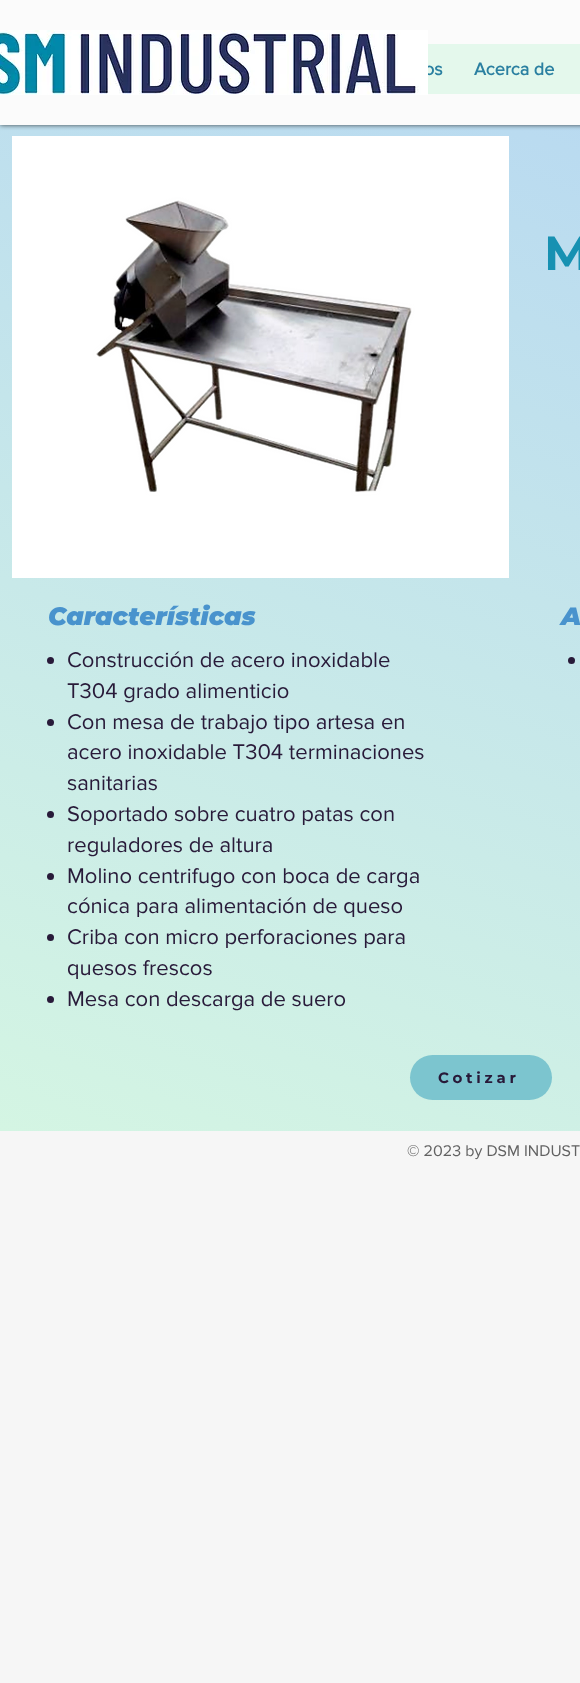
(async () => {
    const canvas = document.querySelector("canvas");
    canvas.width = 580;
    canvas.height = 1683;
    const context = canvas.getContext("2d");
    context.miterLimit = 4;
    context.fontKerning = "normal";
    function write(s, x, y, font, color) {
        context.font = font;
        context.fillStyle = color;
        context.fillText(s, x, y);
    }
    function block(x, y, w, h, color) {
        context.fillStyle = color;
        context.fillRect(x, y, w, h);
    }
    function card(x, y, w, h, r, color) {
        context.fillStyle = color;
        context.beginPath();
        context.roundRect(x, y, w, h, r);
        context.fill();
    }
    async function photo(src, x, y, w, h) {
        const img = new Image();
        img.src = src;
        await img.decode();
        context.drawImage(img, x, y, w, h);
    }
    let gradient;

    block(0, 0, 580, 1683, "rgb(246, 246, 246)");
    gradient = context.createLinearGradient(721, 26, 259, 1230);
    gradient.addColorStop(0, "rgb(182, 215, 242)");
    gradient.addColorStop(1, "rgb(212, 245, 227)");
    context.fillStyle = gradient;
    context.fillRect(0, 125, 580, 1006);
    context.fillStyle = "rgba(0, 0, 0, 0.7)";
    context.filter = "blur(2.5px)";
    context.beginPath();
    context.rect(0, 0, 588, 125);
    context.fill();
    context.filter = "none";
    block(0, 0, 580, 125, "rgb(251, 251, 251)");
    block(428, 44, 152, 50, "rgb(228, 248, 236)");
    write("os", 424, 75, "bold 18px 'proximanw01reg'", "rgb(43, 128, 161)");
    await photo("media/1.png", 0, 30, 428, 65);
    write("Acerca de", 474, 75, "bold 18px 'proximanw01reg'", "rgb(43, 128, 161)");
    await photo("media/2.png", 12, 136, 497, 442);
    write("M", 544, 270, "bold 48px Montserrat", "rgb(23, 145, 178)");
    write("Características", 48, 625, "italic 100 25px Montserrat", "rgb(73, 147, 205)");
    write("A", 561, 625, "italic 100 25px Montserrat", "rgb(73, 147, 205)");
    context.fillStyle = "rgb(40, 26, 57)";
    context.beginPath();
    context.arc(50.5, 660.5, 3.5, 0, Math.PI * 2);
    context.fill();
    write("Construcción de acero inoxidable", 67, 667, "22px 'proximanw01reg'", "rgb(40, 26, 57)");
    write("T304 grado alimenticio", 67, 698, "22px 'proximanw01reg'", "rgb(40, 26, 57)");
    context.beginPath();
    context.arc(50.5, 722.5, 3.5, 0, Math.PI * 2);
    context.fill();
    write("Con mesa de trabajo tipo artesa en", 67, 729, "22px 'proximanw01reg'", "rgb(40, 26, 57)");
    write("acero inoxidable T304 terminaciones", 67, 759, "22px 'proximanw01reg'", "rgb(40, 26, 57)");
    write("sanitarias", 67, 790, "22px 'proximanw01reg'", "rgb(40, 26, 57)");
    context.beginPath();
    context.arc(50.5, 814.5, 3.5, 0, Math.PI * 2);
    context.fill();
    write("Soportado sobre cuatro patas con", 67, 821, "22px 'proximanw01reg'", "rgb(40, 26, 57)");
    write("reguladores de altura", 67, 852, "22px 'proximanw01reg'", "rgb(40, 26, 57)");
    context.beginPath();
    context.arc(50.5, 876.5, 3.5, 0, Math.PI * 2);
    context.fill();
    write("Molino centrifugo con boca de carga", 67, 883, "22px 'proximanw01reg'", "rgb(40, 26, 57)");
    write("cónica para alimentación de queso", 67, 913, "22px 'proximanw01reg'", "rgb(40, 26, 57)");
    context.beginPath();
    context.arc(50.5, 937.5, 3.5, 0, Math.PI * 2);
    context.fill();
    write("Criba con micro perforaciones para", 67, 944, "22px 'proximanw01reg'", "rgb(40, 26, 57)");
    write("quesos frescos", 67, 975, "22px 'proximanw01reg'", "rgb(40, 26, 57)");
    context.beginPath();
    context.arc(50.5, 999.5, 3.5, 0, Math.PI * 2);
    context.fill();
    write("Mesa con descarga de suero", 67, 1006, "22px 'proximanw01reg'", "rgb(40, 26, 57)");
    context.beginPath();
    context.arc(571.5, 660.5, 3.5, 0, Math.PI * 2);
    context.fill();
    card(410, 1055, 142, 45, 22.5, "rgb(124, 197, 207)");
    context.letterSpacing = "3.75px";
    write("Cotizar", 438, 1083, "bold 15px Montserrat", "rgb(40, 26, 57)");
    context.letterSpacing = "0px";
    write("© 2023 by DSM INDUST", 407, 1156, "16px 'proximanw01reg'", "rgb(98, 98, 98)");
})();
